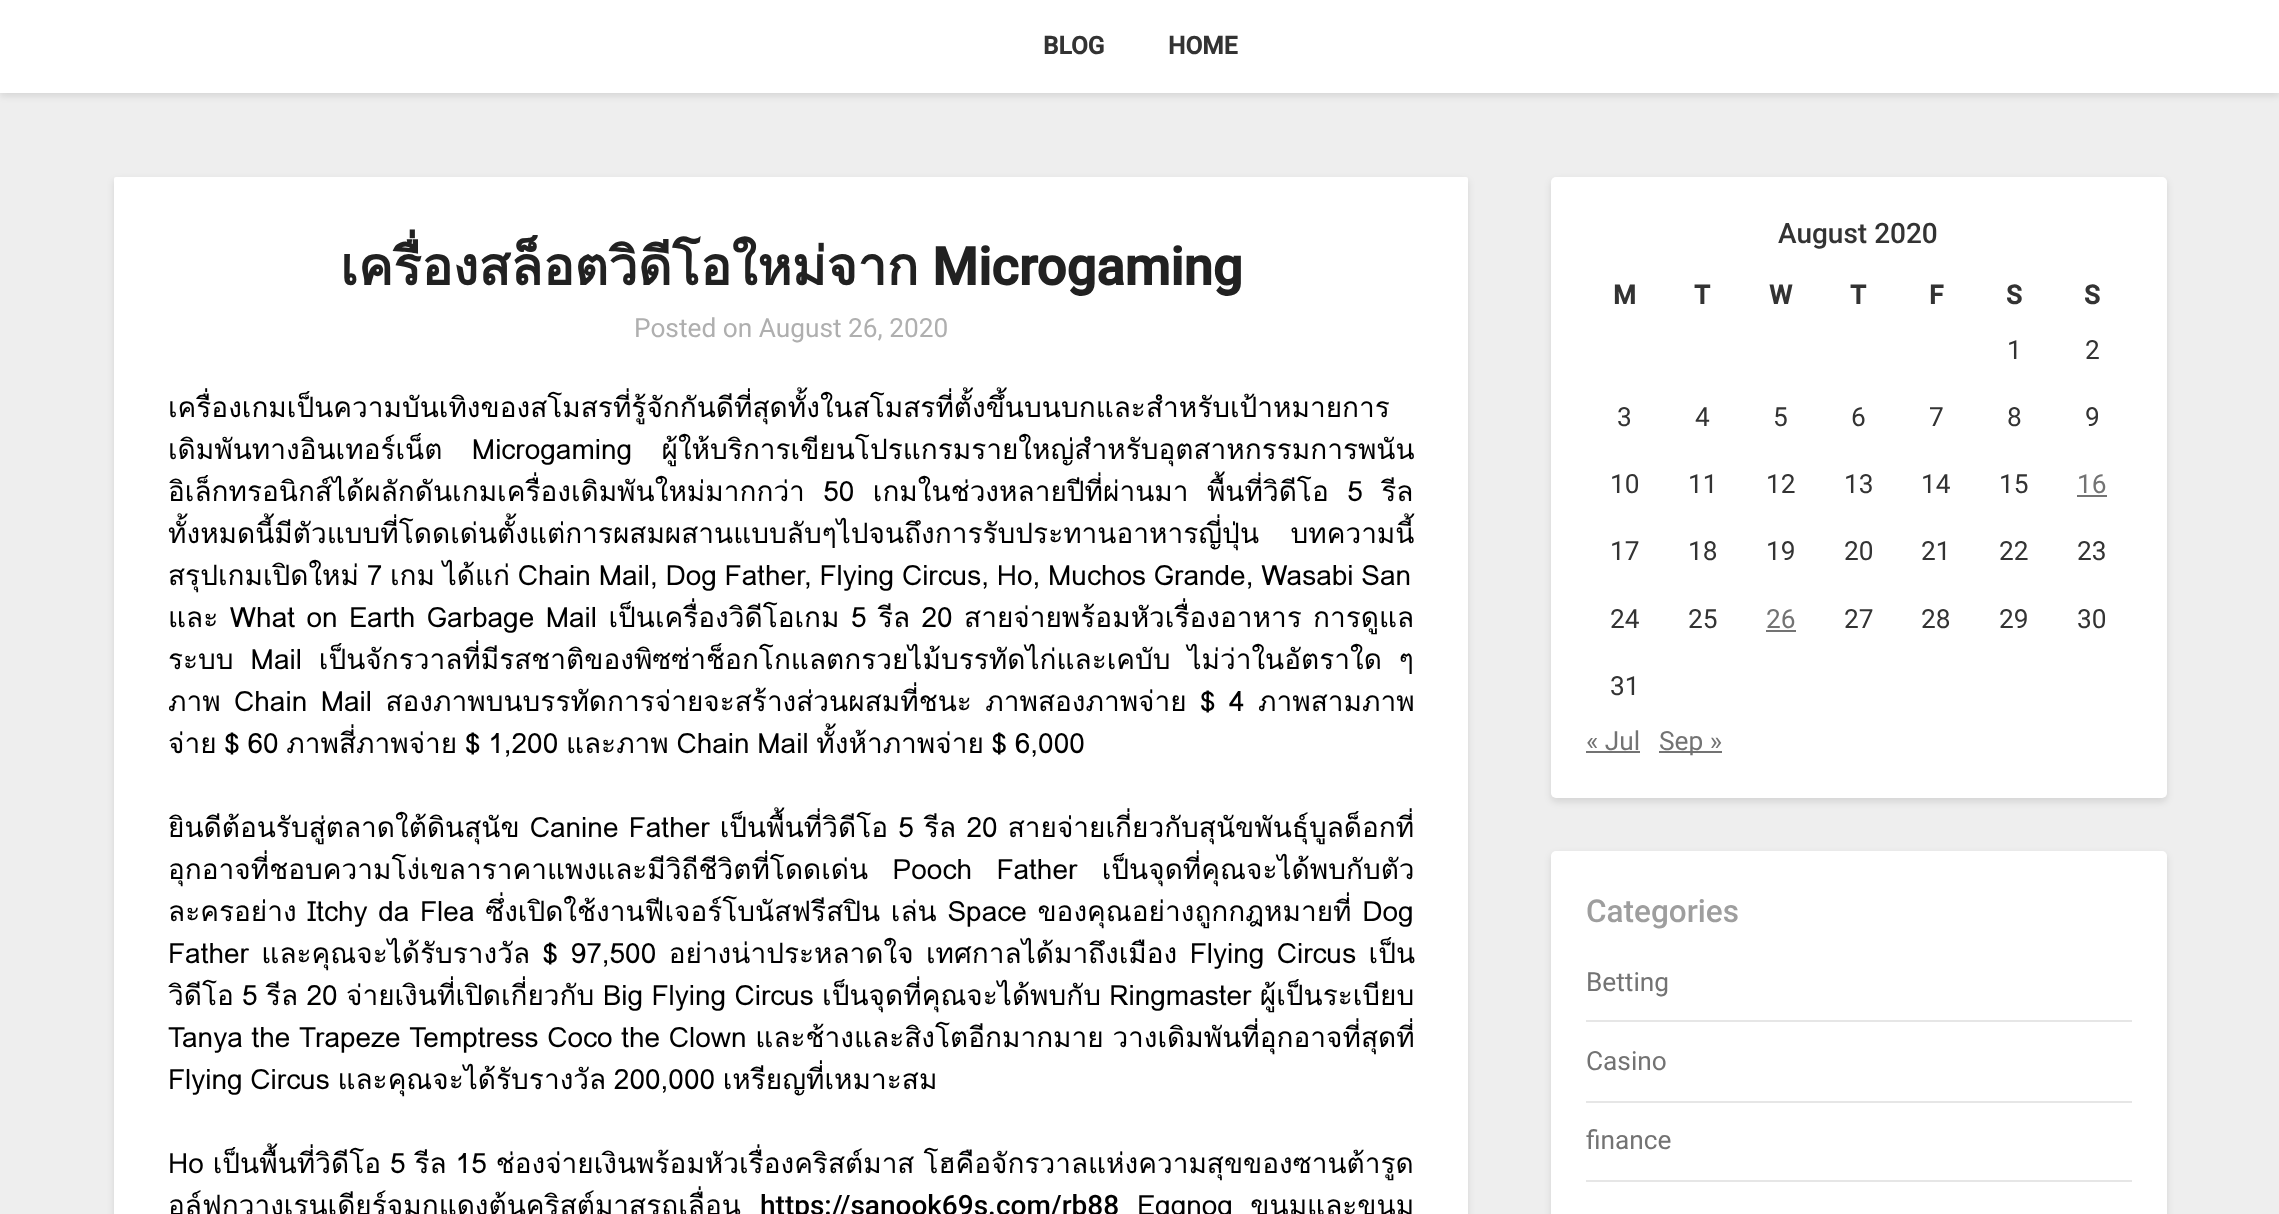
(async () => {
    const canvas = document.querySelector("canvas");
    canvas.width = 2279;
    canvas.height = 1214;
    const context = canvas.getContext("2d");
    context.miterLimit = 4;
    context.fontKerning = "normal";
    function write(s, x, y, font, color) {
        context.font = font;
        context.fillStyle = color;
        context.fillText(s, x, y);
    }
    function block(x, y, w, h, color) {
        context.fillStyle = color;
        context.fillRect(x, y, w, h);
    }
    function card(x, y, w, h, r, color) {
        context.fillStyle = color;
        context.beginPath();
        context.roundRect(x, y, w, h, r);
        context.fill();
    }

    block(0, 0, 2279, 1214, "rgb(238, 238, 238)");
    context.fillStyle = "rgba(0, 0, 0, 0.1)";
    context.filter = "blur(3.5px)";
    context.beginPath();
    context.rect(0, 4, 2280, 92);
    context.fill();
    context.filter = "none";
    block(0, 0, 2279, 93, "rgb(255, 255, 255)");
    write("BLOG", 1043, 54, "bold 24.5px Roboto", "rgb(51, 51, 51)");
    write("HOME", 1168, 54, "bold 24.5px Roboto", "rgb(51, 51, 51)");
    context.fillStyle = "rgba(0, 0, 0, 0.1)";
    context.filter = "blur(3.5px)";
    context.beginPath();
    context.roundRect(114, 180, 1354, 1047, 2);
    context.fill();
    context.filter = "none";
    card(114, 177, 1354, 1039, 2, "rgb(255, 255, 255)");
    write("เครื่องสล็อตวิดีโอใหม่จาก", 340, 285, "bold 52.5px Loma", "rgb(33, 33, 33)");
    write("Microgaming", 932, 285, "bold 52.5px Roboto", "rgb(33, 33, 33)");
    write("Posted on August 26, 2020", 634, 337, "26.25px Roboto", "rgb(175, 175, 175)");
    write("เครื่องเกมเป็นความบันเทิงของสโมสรที่รู้จักกันดีที่สุดทั้งในสโมสรที่ตั้งขึ้นบนบกและสำหรับเป้าหมายการ", 168, 417, "28px Loma", "rgb(0, 0, 0)");
    context.wordSpacing = "20px";
    write("เดิมพันทางอินเทอร์เน็ต Microgaming ผู้ให้บริการเขียนโปรแกรมรายใหญ่สำหรับอุตสาหกรรมการพนัน", 168, 459, "28px Loma", "rgb(0, 0, 0)");
    context.wordSpacing = "9px";
    write("อิเล็กทรอนิกส์ได้ผลักดันเกมเครื่องเดิมพันใหม่มากกว่า 50 เกมในช่วงหลายปีที่ผ่านมา พื้นที่วิดีโอ 5 รีล", 168, 501, "28px Loma", "rgb(0, 0, 0)");
    context.wordSpacing = "22px";
    write("ทั้งหมดนี้มีตัวแบบที่โดดเด่นตั้งแต่การผสมผสานแบบลับๆไปจนถึงการรับประทานอาหารญี่ปุ่น บทความนี้", 168, 543, "28px Loma", "rgb(0, 0, 0)");
    context.wordSpacing = "-1.7px";
    write("สรุปเกมเปิดใหม่ 7 เกม ได้แก่ Chain Mail, Dog Father, Flying Circus, Ho, Muchos Grande, Wasabi San", 168, 585, "28px Loma", "rgb(0, 0, 0)");
    context.wordSpacing = "2px";
    write("และ What on Earth Garbage Mail เป็นเครื่องวิดีโอเกม 5 รีล 20 สายจ่ายพร้อมหัวเรื่องอาหาร การดูแล", 168, 627, "28px Loma", "rgb(0, 0, 0)");
    context.wordSpacing = "7.5px";
    write("ระบบ Mail เป็นจักรวาลที่มีรสชาติของพิซซ่าช็อกโกแลตกรวยไม้บรรทัดไก่และเคบับ ไม่ว่าในอัตราใด ๆ", 168, 669, "28px Loma", "rgb(0, 0, 0)");
    context.wordSpacing = "4px";
    write("ภาพ Chain Mail สองภาพบนบรรทัดการจ่ายจะสร้างส่วนผสมที่ชนะ ภาพสองภาพจ่าย $ 4 ภาพสามภาพ", 168, 711, "28px Loma", "rgb(0, 0, 0)");
    context.wordSpacing = "-1.75px";
    write("จ่าย $ 60 ภาพสี่ภาพจ่าย $ 1,200 และภาพ Chain Mail ทั้งห้าภาพจ่าย $ 6,000", 168, 753, "28px Loma", "rgb(0, 0, 0)");
    context.wordSpacing = "0.75px";
    write("ยินดีต้อนรับสู่ตลาดใต้ดินสุนัข Canine Father เป็นพื้นที่วิดีโอ 5 รีล 20 สายจ่ายเกี่ยวกับสุนัขพันธุ์บูลด็อกที่", 168, 837, "28px Loma", "rgb(0, 0, 0)");
    context.wordSpacing = "15px";
    write("อุกอาจที่ชอบความโง่เขลาราคาแพงและมีวิถีชีวิตที่โดดเด่น Pooch Father เป็นจุดที่คุณจะได้พบกับตัว", 168, 879, "28px Loma", "rgb(0, 0, 0)");
    context.wordSpacing = "1.25px";
    write("ละครอย่าง Itchy da Flea ซึ่งเปิดใช้งานฟีเจอร์โบนัสฟรีสปิน เล่น Space ของคุณอย่างถูกกฎหมายที่ Dog", 168, 921, "28px Loma", "rgb(0, 0, 0)");
    context.wordSpacing = "3px";
    write("Father และคุณจะได้รับรางวัล $ 97,500 อย่างน่าประหลาดใจ เทศกาลได้มาถึงเมือง Flying Circus เป็น", 168, 963, "28px Loma", "rgb(0, 0, 0)");
    context.wordSpacing = "-1.1px";
    write("วิดีโอ 5 รีล 20 จ่ายเงินที่เปิดเกี่ยวกับ Big Flying Circus เป็นจุดที่คุณจะได้พบกับ Ringmaster ผู้เป็นระเบียบ", 168, 1005, "28px Loma", "rgb(0, 0, 0)");
    context.wordSpacing = "-0.75px";
    write("Tanya the Trapeze Temptress Coco the Clown และช้างและสิงโตอีกมากมาย วางเดิมพันที่อุกอาจที่สุดที่", 168, 1047, "28px Loma", "rgb(0, 0, 0)");
    context.wordSpacing = "-1.75px";
    write("Flying Circus และคุณจะได้รับรางวัล 200,000 เหรียญที่เหมาะสม", 168, 1089, "28px Loma", "rgb(0, 0, 0)");
    context.wordSpacing = "-0.5px";
    write("Ho เป็นพื้นที่วิดีโอ 5 รีล 15 ช่องจ่ายเงินพร้อมหัวเรื่องคริสต์มาส โฮคือจักรวาลแห่งความสุขของซานต้ารูด", 168, 1173, "28px Loma", "rgb(0, 0, 0)");
    context.wordSpacing = "0px";
    write("อล์ฟกวางเรนเดียร์จมูกแดงต้นคริสต์มาสรถเลื่อน", 168, 1215, "28px Loma", "rgb(0, 0, 0)");
    write("https://sanook69s.com/rb88", 760, 1215, "500 28px Roboto", "rgb(0, 0, 0)");
    context.wordSpacing = "8px";
    write("Eggnog ขนมและขนม", 1137, 1215, "28px Loma", "rgb(0, 0, 0)");
    context.fillStyle = "rgba(0, 0, 0, 0.1)";
    context.filter = "blur(3.5px)";
    context.beginPath();
    context.roundRect(1551, 180, 616, 622, 5);
    context.fill();
    context.filter = "none";
    card(1551, 177, 616, 621, 5, "rgb(255, 255, 255)");
    context.wordSpacing = "0px";
    write("August 2020", 1778, 243, "500 28px Roboto", "rgb(51, 51, 51)");
    write("M", 1613, 304, "bold 26.25px Roboto", "rgb(51, 51, 51)");
    write("T", 1694, 304, "bold 26.25px Roboto", "rgb(51, 51, 51)");
    write("W", 1769, 304, "bold 26.25px Roboto", "rgb(51, 51, 51)");
    write("T", 1850, 304, "bold 26.25px Roboto", "rgb(51, 51, 51)");
    write("F", 1929, 304, "bold 26.25px Roboto", "rgb(51, 51, 51)");
    write("S", 2006, 304, "bold 26.25px Roboto", "rgb(51, 51, 51)");
    write("S", 2084, 304, "bold 26.25px Roboto", "rgb(51, 51, 51)");
    write("1", 2007, 359, "26.25px Roboto", "rgb(51, 51, 51)");
    write("2", 2085, 359, "26.25px Roboto", "rgb(51, 51, 51)");
    write("3", 1617, 426, "26.25px Roboto", "rgb(51, 51, 51)");
    write("4", 1695, 426, "26.25px Roboto", "rgb(51, 51, 51)");
    write("5", 1773, 426, "26.25px Roboto", "rgb(51, 51, 51)");
    write("6", 1851, 426, "26.25px Roboto", "rgb(51, 51, 51)");
    write("7", 1929, 426, "26.25px Roboto", "rgb(51, 51, 51)");
    write("8", 2007, 426, "26.25px Roboto", "rgb(51, 51, 51)");
    write("9", 2085, 426, "26.25px Roboto", "rgb(51, 51, 51)");
    write("10", 1610, 493, "26.25px Roboto", "rgb(51, 51, 51)");
    write("11", 1688, 493, "26.25px Roboto", "rgb(51, 51, 51)");
    write("12", 1766, 493, "26.25px Roboto", "rgb(51, 51, 51)");
    write("13", 1844, 493, "26.25px Roboto", "rgb(51, 51, 51)");
    write("14", 1921, 493, "26.25px Roboto", "rgb(51, 51, 51)");
    write("15", 1999, 493, "26.25px Roboto", "rgb(51, 51, 51)");
    write("16", 2077, 493, "26.25px Roboto", "rgb(115, 115, 115)");
    block(2077, 495, 30, 2, "rgb(115, 115, 115)");
    write("17", 1610, 560, "26.25px Roboto", "rgb(51, 51, 51)");
    write("18", 1688, 560, "26.25px Roboto", "rgb(51, 51, 51)");
    write("19", 1766, 560, "26.25px Roboto", "rgb(51, 51, 51)");
    write("20", 1844, 560, "26.25px Roboto", "rgb(51, 51, 51)");
    write("21", 1921, 560, "26.25px Roboto", "rgb(51, 51, 51)");
    write("22", 1999, 560, "26.25px Roboto", "rgb(51, 51, 51)");
    write("23", 2077, 560, "26.25px Roboto", "rgb(51, 51, 51)");
    write("24", 1610, 628, "26.25px Roboto", "rgb(51, 51, 51)");
    write("25", 1688, 628, "26.25px Roboto", "rgb(51, 51, 51)");
    write("26", 1766, 628, "26.25px Roboto", "rgb(115, 115, 115)");
    block(1766, 630, 30, 2, "rgb(115, 115, 115)");
    write("27", 1844, 628, "26.25px Roboto", "rgb(51, 51, 51)");
    write("28", 1921, 628, "26.25px Roboto", "rgb(51, 51, 51)");
    write("29", 1999, 628, "26.25px Roboto", "rgb(51, 51, 51)");
    write("30", 2077, 628, "26.25px Roboto", "rgb(51, 51, 51)");
    write("31", 1610, 695, "26.25px Roboto", "rgb(51, 51, 51)");
    write("« Jul", 1586, 750, "26.25px Roboto", "rgb(115, 115, 115)");
    block(1586, 751, 54, 2, "rgb(115, 115, 115)");
    block(1659, 751, 63, 2, "rgb(115, 115, 115)");
    write("Sep »", 1659, 750, "26.25px Roboto", "rgb(115, 115, 115)");
    context.fillStyle = "rgba(0, 0, 0, 0.1)";
    context.filter = "blur(3.5px)";
    context.beginPath();
    context.roundRect(1551, 854, 616, 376, 5);
    context.fill();
    context.filter = "none";
    card(1551, 851, 616, 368, 5, "rgb(255, 255, 255)");
    write("Categories", 1586, 922, "500 31.5px Roboto", "rgb(158, 158, 158)");
    block(1586, 1020, 546, 2, "rgb(230, 230, 230)");
    write("Betting", 1586, 991, "26.25px Roboto", "rgb(115, 115, 115)");
    block(1586, 1101, 546, 2, "rgb(230, 230, 230)");
    write("Casino", 1586, 1070, "26.25px Roboto", "rgb(115, 115, 115)");
    block(1586, 1180, 546, 2, "rgb(230, 230, 230)");
    write("finance", 1586, 1149, "26.25px Roboto", "rgb(115, 115, 115)");
})();
